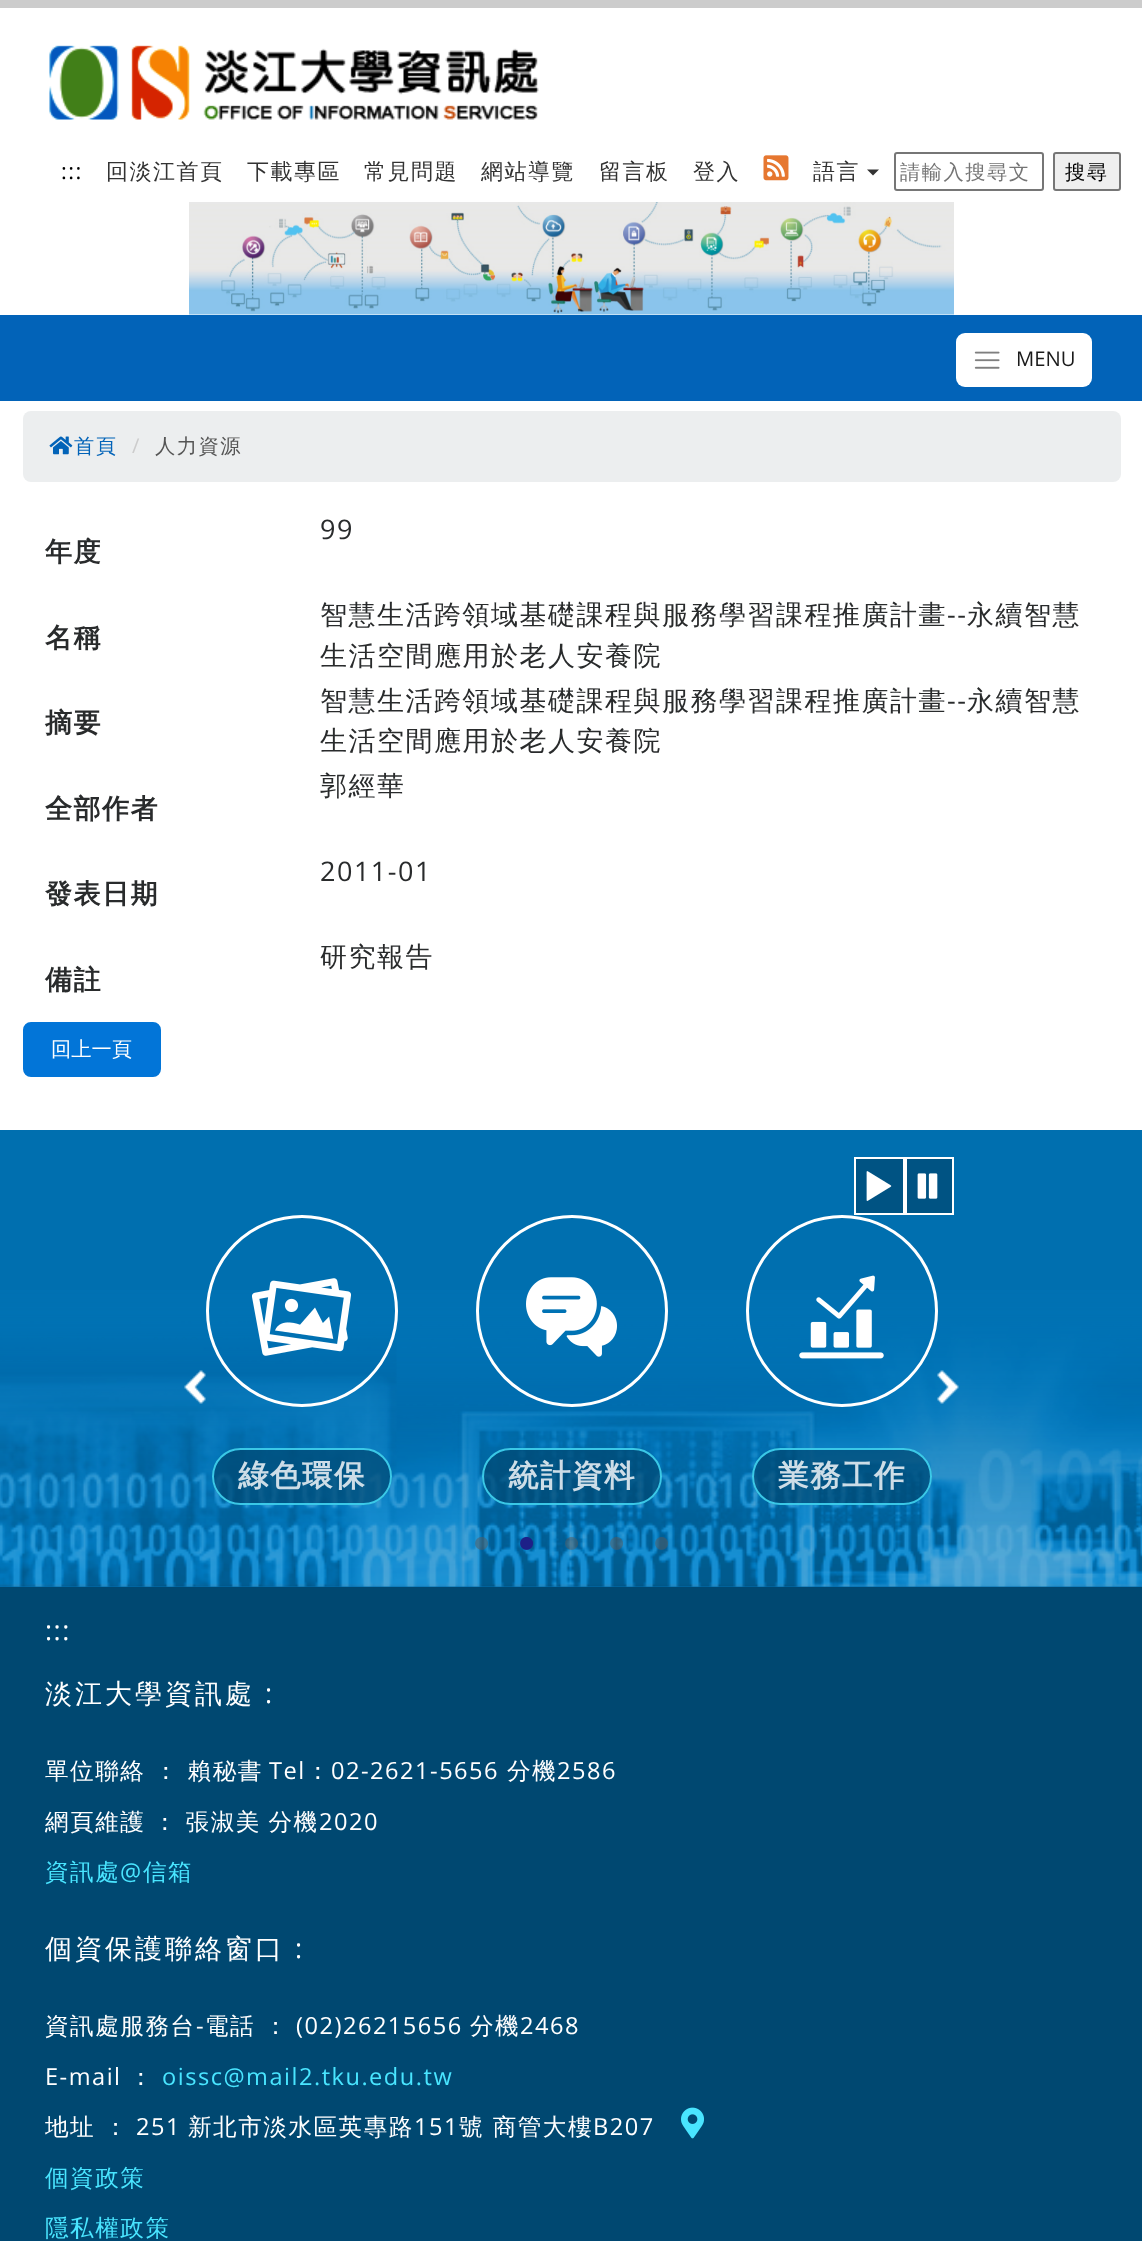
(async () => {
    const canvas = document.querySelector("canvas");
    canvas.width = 1142;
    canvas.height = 2241;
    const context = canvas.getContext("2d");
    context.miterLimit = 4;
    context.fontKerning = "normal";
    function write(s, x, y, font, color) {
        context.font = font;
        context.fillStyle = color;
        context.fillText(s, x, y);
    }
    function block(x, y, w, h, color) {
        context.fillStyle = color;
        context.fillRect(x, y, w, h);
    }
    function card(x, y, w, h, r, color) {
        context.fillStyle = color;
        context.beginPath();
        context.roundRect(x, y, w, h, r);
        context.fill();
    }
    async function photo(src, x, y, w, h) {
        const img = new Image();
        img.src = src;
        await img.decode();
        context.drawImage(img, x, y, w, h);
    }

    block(0, 0, 1142, 2241, "rgb(255, 255, 255)");
    block(0, 0, 1142, 8, "rgb(204, 204, 204)");
    await photo("media/1.png", 49, 45, 490, 75);
    context.letterSpacing = "1.5px";
    write(":::", 61, 179, "22px Open Sans", "rgb(0, 0, 0)");
    write("回淡江首頁", 106, 179, "500 22px WenQuanYi Zen Hei", "rgb(51, 51, 51)");
    write("下載專區", 247, 179, "500 22px WenQuanYi Zen Hei", "rgb(51, 51, 51)");
    write("常見問題", 364, 179, "500 22px WenQuanYi Zen Hei", "rgb(51, 51, 51)");
    write("網站導覽", 481, 179, "500 22px WenQuanYi Zen Hei", "rgb(51, 51, 51)");
    write("留言板", 599, 179, "500 22px WenQuanYi Zen Hei", "rgb(51, 51, 51)");
    write("登入", 693, 179, "500 22px WenQuanYi Zen Hei", "rgb(51, 51, 51)");
    await photo("media/2.png", 763, 155, 26, 26);
    write("語言", 813, 179, "500 22px WenQuanYi Zen Hei", "rgb(51, 51, 51)");
    context.beginPath();
    context.moveTo(867, 169.5);
    context.lineTo(879, 169.5);
    context.lineTo(873, 175.5);
    context.closePath();
    context.fill();
    context.beginPath();
    context.roundRect(895, 153, 148, 37, 2);
    context.strokeStyle = "rgb(118, 118, 118)";
    context.lineWidth = 2;
    context.stroke();
    write("請輸入搜尋文", 900, 179, "500 20.25px WenQuanYi Zen Hei", "rgb(117, 117, 117)");
    context.fillStyle = "rgb(239, 239, 239)";
    context.beginPath();
    context.roundRect(1054, 153, 66, 37, 2);
    context.fill();
    context.stroke();
    write("搜尋", 1065, 179, "500 20.25px WenQuanYi Zen Hei", "rgb(0, 0, 0)");
    await photo("media/3.png", 189, 202, 765, 113);
    block(0, 315, 1142, 86, "rgb(2, 99, 184)");
    card(956, 333, 136, 54, 9, "rgb(255, 255, 255)");
    await photo("media/4.png", 974, 351, 26, 18);
    context.letterSpacing = "0px";
    write("MENU", 1016, 366, "20.25px Open Sans", "rgb(26, 26, 26)");
    card(23, 411, 1098, 71, 8, "rgb(236, 238, 239)");
    await photo("media/5.png", 49, 436, 24, 19);
    context.letterSpacing = "1.5px";
    write("首頁", 74, 453, "500 20.25px WenQuanYi Zen Hei", "rgb(2, 99, 184)");
    write("/", 132, 453, "20.25px Open Sans", "rgb(204, 204, 204)");
    write("人力資源", 155, 453, "500 20.25px WenQuanYi Zen Hei", "rgb(85, 85, 85)");
    write("99", 320, 539, "27px Open Sans", "rgb(41, 43, 44)");
    write("年度", 45, 561, "bold 27px WenQuanYi Zen Hei", "rgb(41, 43, 44)");
    write("名稱", 45, 647, "bold 27px WenQuanYi Zen Hei", "rgb(41, 43, 44)");
    write("智慧生活跨領域基礎課程與服務學習課程推廣計畫", 320, 624, "500 27px WenQuanYi Zen Hei", "rgb(41, 43, 44)");
    write("--", 947, 624, "27px Open Sans", "rgb(41, 43, 44)");
    write("永續智慧", 967, 624, "500 27px WenQuanYi Zen Hei", "rgb(41, 43, 44)");
    write("生活空間應用於老人安養院", 320, 665, "500 27px WenQuanYi Zen Hei", "rgb(41, 43, 44)");
    write("摘要", 45, 732, "bold 27px WenQuanYi Zen Hei", "rgb(41, 43, 44)");
    write("智慧生活跨領域基礎課程與服務學習課程推廣計畫", 320, 710, "500 27px WenQuanYi Zen Hei", "rgb(41, 43, 44)");
    write("--", 947, 710, "27px Open Sans", "rgb(41, 43, 44)");
    write("永續智慧", 967, 710, "500 27px WenQuanYi Zen Hei", "rgb(41, 43, 44)");
    write("生活空間應用於老人安養院", 320, 750, "500 27px WenQuanYi Zen Hei", "rgb(41, 43, 44)");
    write("郭經華", 320, 795, "500 27px WenQuanYi Zen Hei", "rgb(41, 43, 44)");
    write("全部作者", 45, 818, "bold 27px WenQuanYi Zen Hei", "rgb(41, 43, 44)");
    write("2011-01", 320, 881, "27px Open Sans", "rgb(41, 43, 44)");
    write("發表日期", 45, 903, "bold 27px WenQuanYi Zen Hei", "rgb(41, 43, 44)");
    write("研究報告", 320, 966, "500 27px WenQuanYi Zen Hei", "rgb(41, 43, 44)");
    write("備註", 45, 989, "bold 27px WenQuanYi Zen Hei", "rgb(41, 43, 44)");
    context.fillStyle = "rgb(2, 117, 216)";
    context.beginPath();
    context.roundRect(24, 1023, 136, 53, 7);
    context.fill();
    context.strokeStyle = "rgb(2, 117, 216)";
    context.stroke();
    context.letterSpacing = "0px";
    write("回上一頁", 51, 1056, "500 20.25px WenQuanYi Zen Hei", "rgb(255, 255, 255)");
    block(0, 1130, 1142, 457, "rgb(0, 111, 175)");
    await photo("media/6.png", 0, 1290, 1142, 297);
    context.fillStyle = "rgb(0, 83, 131)";
    context.beginPath();
    context.rect(855, 1158, 49, 56);
    context.fill();
    context.strokeStyle = "rgb(255, 255, 255)";
    context.stroke();
    await photo("media/7.png", 866, 1171, 26, 30);
    context.beginPath();
    context.rect(906, 1158, 47, 56);
    context.fill();
    context.stroke();
    await photo("media/8.png", 917, 1173, 21, 26);
    await photo("media/9.png", 184, 1370, 22, 34);
    context.beginPath();
    context.arc(842, 1311, 94.5, 0, Math.PI * 2);
    context.lineWidth = 3;
    context.stroke();
    await photo("media/10.png", 937, 1370, 22, 34);
    context.beginPath();
    context.arc(302, 1311, 94.5, 0, Math.PI * 2);
    context.stroke();
    await photo("media/11.png", 252, 1278, 99, 78);
    card(212, 1448, 180, 57, 28.5, "rgba(0, 72, 113, 0.72)");
    context.beginPath();
    context.roundRect(213, 1449, 178, 55, 27.5);
    context.strokeStyle = "rgba(73, 229, 255, 0.8)";
    context.lineWidth = 2;
    context.stroke();
    context.letterSpacing = "1.5px";
    write("綠色環保", 238, 1486, "bold 30.5px WenQuanYi Zen Hei", "rgb(205, 221, 231)");
    context.beginPath();
    context.arc(572, 1311, 94.5, 0, Math.PI * 2);
    context.strokeStyle = "rgb(255, 255, 255)";
    context.lineWidth = 3;
    context.stroke();
    await photo("media/12.png", 526, 1277, 91, 80);
    card(482, 1448, 180, 57, 28.5, "rgba(0, 72, 113, 0.72)");
    context.beginPath();
    context.roundRect(483, 1449, 178, 55, 27.5);
    context.strokeStyle = "rgba(73, 229, 255, 0.8)";
    context.lineWidth = 2;
    context.stroke();
    write("統計資料", 508, 1486, "bold 30.5px WenQuanYi Zen Hei", "rgb(205, 221, 231)");
    await photo("media/13.png", 799, 1275, 85, 84);
    card(752, 1448, 180, 57, 28.5, "rgba(0, 72, 113, 0.72)");
    context.beginPath();
    context.roundRect(753, 1449, 178, 55, 27.5);
    context.stroke();
    write("業務工作", 778, 1486, "bold 30.5px WenQuanYi Zen Hei", "rgb(205, 221, 231)");
    await photo("media/14.png", 475, 1537, 13, 13);
    await photo("media/15.png", 520, 1536, 13, 14);
    await photo("media/16.png", 565, 1537, 13, 13);
    await photo("media/17.png", 610, 1537, 13, 13);
    await photo("media/18.png", 655, 1537, 13, 13);
    block(0, 1587, 1142, 654, "rgb(0, 72, 113)");
    write(":::", 45, 1640, "27px Open Sans", "rgb(255, 255, 255)");
    context.letterSpacing = "3px";
    write("淡江大學資訊處", 45, 1703, "500 27px WenQuanYi Zen Hei", "rgb(255, 255, 255)");
    write(":", 265, 1703, "27px Open Sans", "rgb(255, 255, 255)");
    context.letterSpacing = "1.5px";
    write("單位聯絡 ： 賴秘書", 45, 1779, "500 23.6px WenQuanYi Zen Hei", "rgb(255, 255, 255)");
    write("Tel", 269, 1779, "23.6px Open Sans", "rgb(255, 255, 255)");
    write("：", 306, 1779, "500 23.6px WenQuanYi Zen Hei", "rgb(255, 255, 255)");
    write("02-2621-5656", 331, 1779, "23.6px Open Sans", "rgb(255, 255, 255)");
    write("分機", 507, 1779, "500 23.6px WenQuanYi Zen Hei", "rgb(255, 255, 255)");
    write("2586", 557, 1779, "23.6px Open Sans", "rgb(255, 255, 255)");
    context.wordSpacing = "-1px";
    write("網頁維護 ： 張淑美 分機", 45, 1830, "500 23.6px WenQuanYi Zen Hei", "rgb(255, 255, 255)");
    context.wordSpacing = "0px";
    write("2020", 319, 1830, "23.6px Open Sans", "rgb(255, 255, 255)");
    write("資訊處", 45, 1880, "500 23.6px WenQuanYi Zen Hei", "rgb(73, 229, 255)");
    write("@", 120, 1880, "23.6px Open Sans", "rgb(73, 229, 255)");
    write("信箱", 143, 1880, "500 23.6px WenQuanYi Zen Hei", "rgb(73, 229, 255)");
    context.letterSpacing = "3px";
    write("個資保護聯絡窗口", 45, 1958, "500 27px WenQuanYi Zen Hei", "rgb(255, 255, 255)");
    write(":", 295, 1958, "27px Open Sans", "rgb(255, 255, 255)");
    context.letterSpacing = "1.5px";
    write("資訊處服務台", 45, 2034, "500 23.6px WenQuanYi Zen Hei", "rgb(255, 255, 255)");
    write("-", 196, 2034, "23.6px Open Sans", "rgb(255, 255, 255)");
    write("電話 ：", 205, 2034, "500 23.6px WenQuanYi Zen Hei", "rgb(255, 255, 255)");
    write("(02)26215656", 296, 2034, "23.6px Open Sans", "rgb(255, 255, 255)");
    write("分機", 470, 2034, "500 23.6px WenQuanYi Zen Hei", "rgb(255, 255, 255)");
    write("2468", 520, 2034, "23.6px Open Sans", "rgb(255, 255, 255)");
    write("E-mail", 45, 2085, "23.6px Open Sans", "rgb(255, 255, 255)");
    write("：", 129, 2085, "500 23.6px WenQuanYi Zen Hei", "rgb(255, 255, 255)");
    write("oissc@mail2.tku.edu.tw", 162, 2085, "23.6px Open Sans", "rgb(73, 229, 255)");
    write("地址 ：", 45, 2135, "500 23.6px WenQuanYi Zen Hei", "rgb(255, 255, 255)");
    write("251", 136, 2135, "23.6px Open Sans", "rgb(255, 255, 255)");
    write("新北市淡水區英專路", 188, 2135, "500 23.6px WenQuanYi Zen Hei", "rgb(255, 255, 255)");
    write("151", 414, 2135, "23.6px Open Sans", "rgb(255, 255, 255)");
    write("號 商管大樓", 459, 2135, "500 23.6px WenQuanYi Zen Hei", "rgb(255, 255, 255)");
    write("B207", 593, 2135, "23.6px Open Sans", "rgb(255, 255, 255)");
    await photo("media/19.png", 681, 2107, 23, 32);
    write("個資政策", 45, 2186, "500 23.6px WenQuanYi Zen Hei", "rgb(73, 229, 255)");
    write("隱私權政策", 45, 2236, "500 23.6px WenQuanYi Zen Hei", "rgb(73, 229, 255)");
})();
